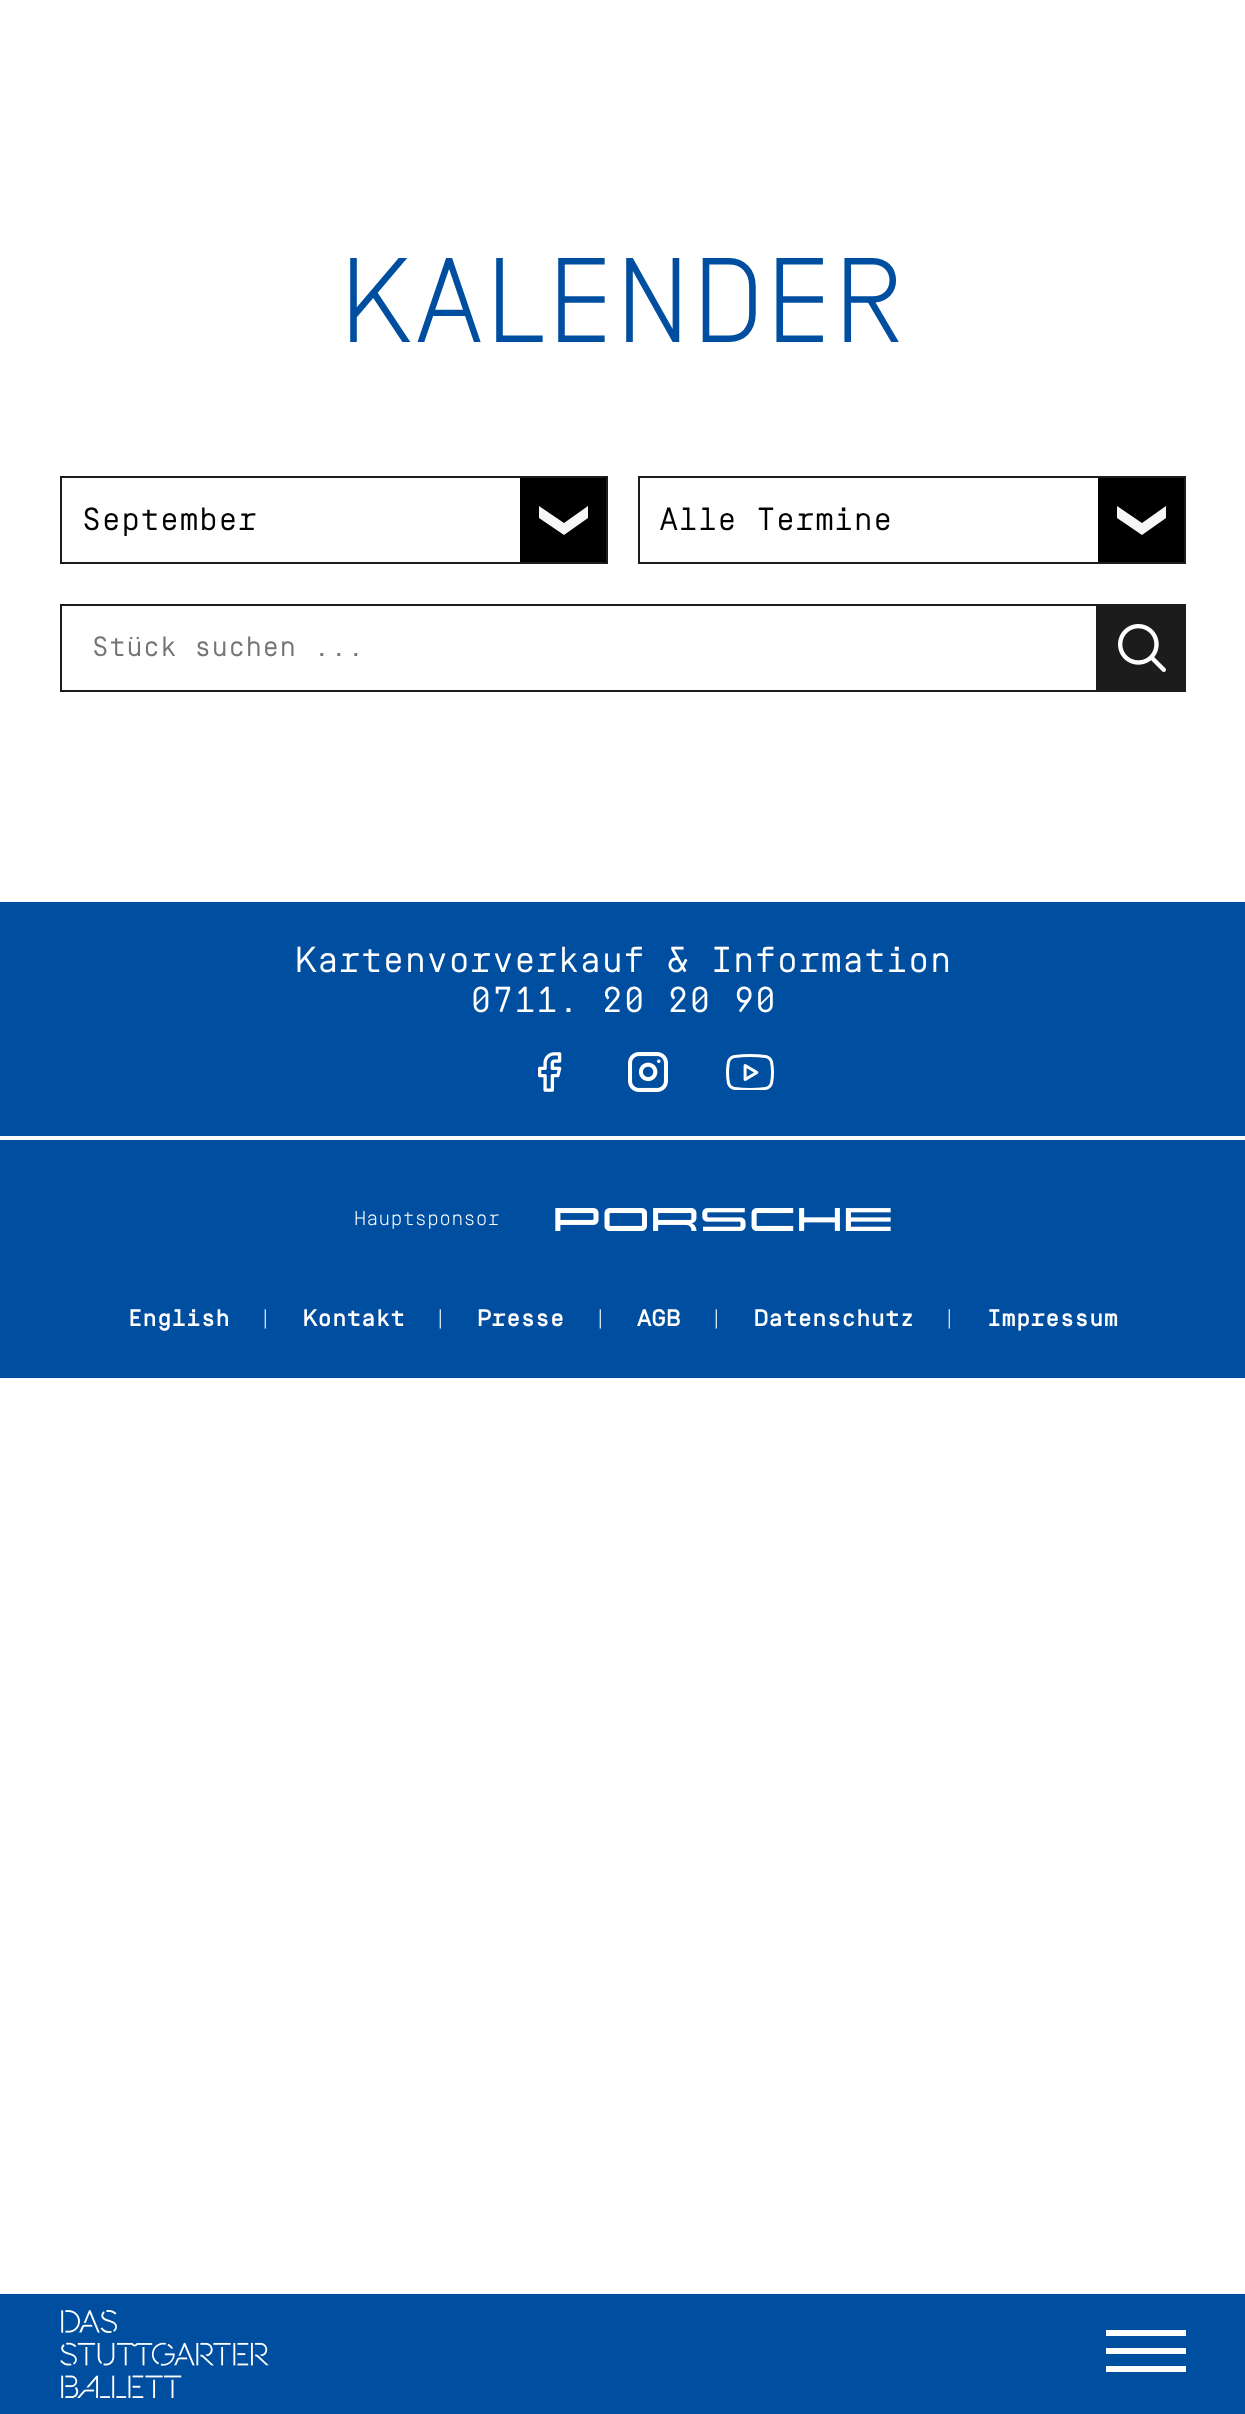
(async () => {
    const canvas = document.querySelector("canvas");
    canvas.width = 1245;
    canvas.height = 2414;
    const context = canvas.getContext("2d");
    context.miterLimit = 4;
    context.fontKerning = "normal";
    function write(s, x, y, font, color) {
        context.font = font;
        context.fillStyle = color;
        context.fillText(s, x, y);
    }
    function block(x, y, w, h, color) {
        context.fillStyle = color;
        context.fillRect(x, y, w, h);
    }
    async function photo(src, x, y, w, h) {
        const img = new Image();
        img.src = src;
        await img.decode();
        context.drawImage(img, x, y, w, h);
    }

    block(0, 0, 1245, 2414, "rgb(255, 255, 255)");
    context.letterSpacing = "3px";
    write("KALENDER", 340, 342, "300 120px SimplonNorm", "rgb(0, 78, 159)");
    block(520, 478, 86, 84, "rgb(0, 0, 0)");
    context.fillStyle = "rgb(247, 247, 247)";
    context.beginPath();
    context.moveTo(539, 518);
    context.lineTo(539, 506);
    context.lineTo(564, 523);
    context.lineTo(588, 506);
    context.lineTo(588, 518);
    context.lineTo(564, 535);
    context.closePath();
    context.fill();
    context.strokeStyle = "rgb(28, 28, 28)";
    context.lineWidth = 2;
    context.strokeRect(61, 477, 546, 86);
    context.letterSpacing = "0px";
    write("September", 82, 530, "32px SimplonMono", "rgb(0, 0, 0)");
    block(1098, 478, 86, 84, "rgb(0, 0, 0)");
    context.fillStyle = "rgb(247, 247, 247)";
    context.beginPath();
    context.moveTo(1117, 518);
    context.lineTo(1117, 506);
    context.lineTo(1142, 523);
    context.lineTo(1166, 506);
    context.lineTo(1166, 518);
    context.lineTo(1142, 535);
    context.closePath();
    context.fill();
    context.strokeRect(639, 477, 546, 86);
    write("Alle Termine", 659, 530, "32px SimplonMono", "rgb(0, 0, 0)");
    context.strokeRect(61, 605, 1036, 86);
    write("Stück suchen ...", 92, 656, "28px SimplonMono", "rgb(117, 117, 117)");
    block(1098, 604, 88, 88, "rgb(28, 28, 28)");
    await photo("media/1.png", 1118, 624, 48, 48);
    block(0, 902, 1245, 476, "rgb(0, 78, 159)");
    write("Kartenvorverkauf & Information", 295, 972, "36px SimplonMono", "rgb(255, 255, 255)");
    write("0711. 20 20 90", 470, 1012, "36px SimplonMono", "rgb(255, 255, 255)");
    await photo("media/2.png", 538, 1052, 24, 40);
    await photo("media/3.png", 628, 1052, 40, 40);
    await photo("media/4.png", 726, 1054, 48, 36);
    block(0, 1136, 1245, 4, "rgb(255, 255, 255)");
    write("Hauptsponsor", 354, 1225, "300 20px SimplonMono", "rgb(255, 255, 255)");
    await photo("media/5.png", 555, 1208, 336, 23);
    write("English", 128, 1326, "500 24px SimplonMono", "rgb(255, 255, 255)");
    write("|", 258, 1326, "500 24px SimplonMono", "rgb(255, 255, 255)");
    write("Kontakt", 303, 1326, "500 24px SimplonMono", "rgb(255, 255, 255)");
    write("|", 433, 1326, "500 24px SimplonMono", "rgb(255, 255, 255)");
    write("Presse", 477, 1326, "500 24px SimplonMono", "rgb(255, 255, 255)");
    write("|", 593, 1326, "500 24px SimplonMono", "rgb(255, 255, 255)");
    write("AGB", 637, 1326, "500 24px SimplonMono", "rgb(255, 255, 255)");
    write("|", 709, 1326, "500 24px SimplonMono", "rgb(255, 255, 255)");
    write("Datenschutz", 754, 1326, "500 24px SimplonMono", "rgb(255, 255, 255)");
    write("|", 942, 1326, "500 24px SimplonMono", "rgb(255, 255, 255)");
    write("Impressum", 987, 1326, "500 24px SimplonMono", "rgb(255, 255, 255)");
    block(0, 2294, 1245, 120, "rgb(0, 78, 159)");
    await photo("media/6.png", 60, 2310, 209, 88);
    block(1106, 2330, 80, 6, "rgb(255, 255, 255)");
    block(1106, 2348, 80, 6, "rgb(255, 255, 255)");
    block(1106, 2366, 80, 6, "rgb(255, 255, 255)");
})();
